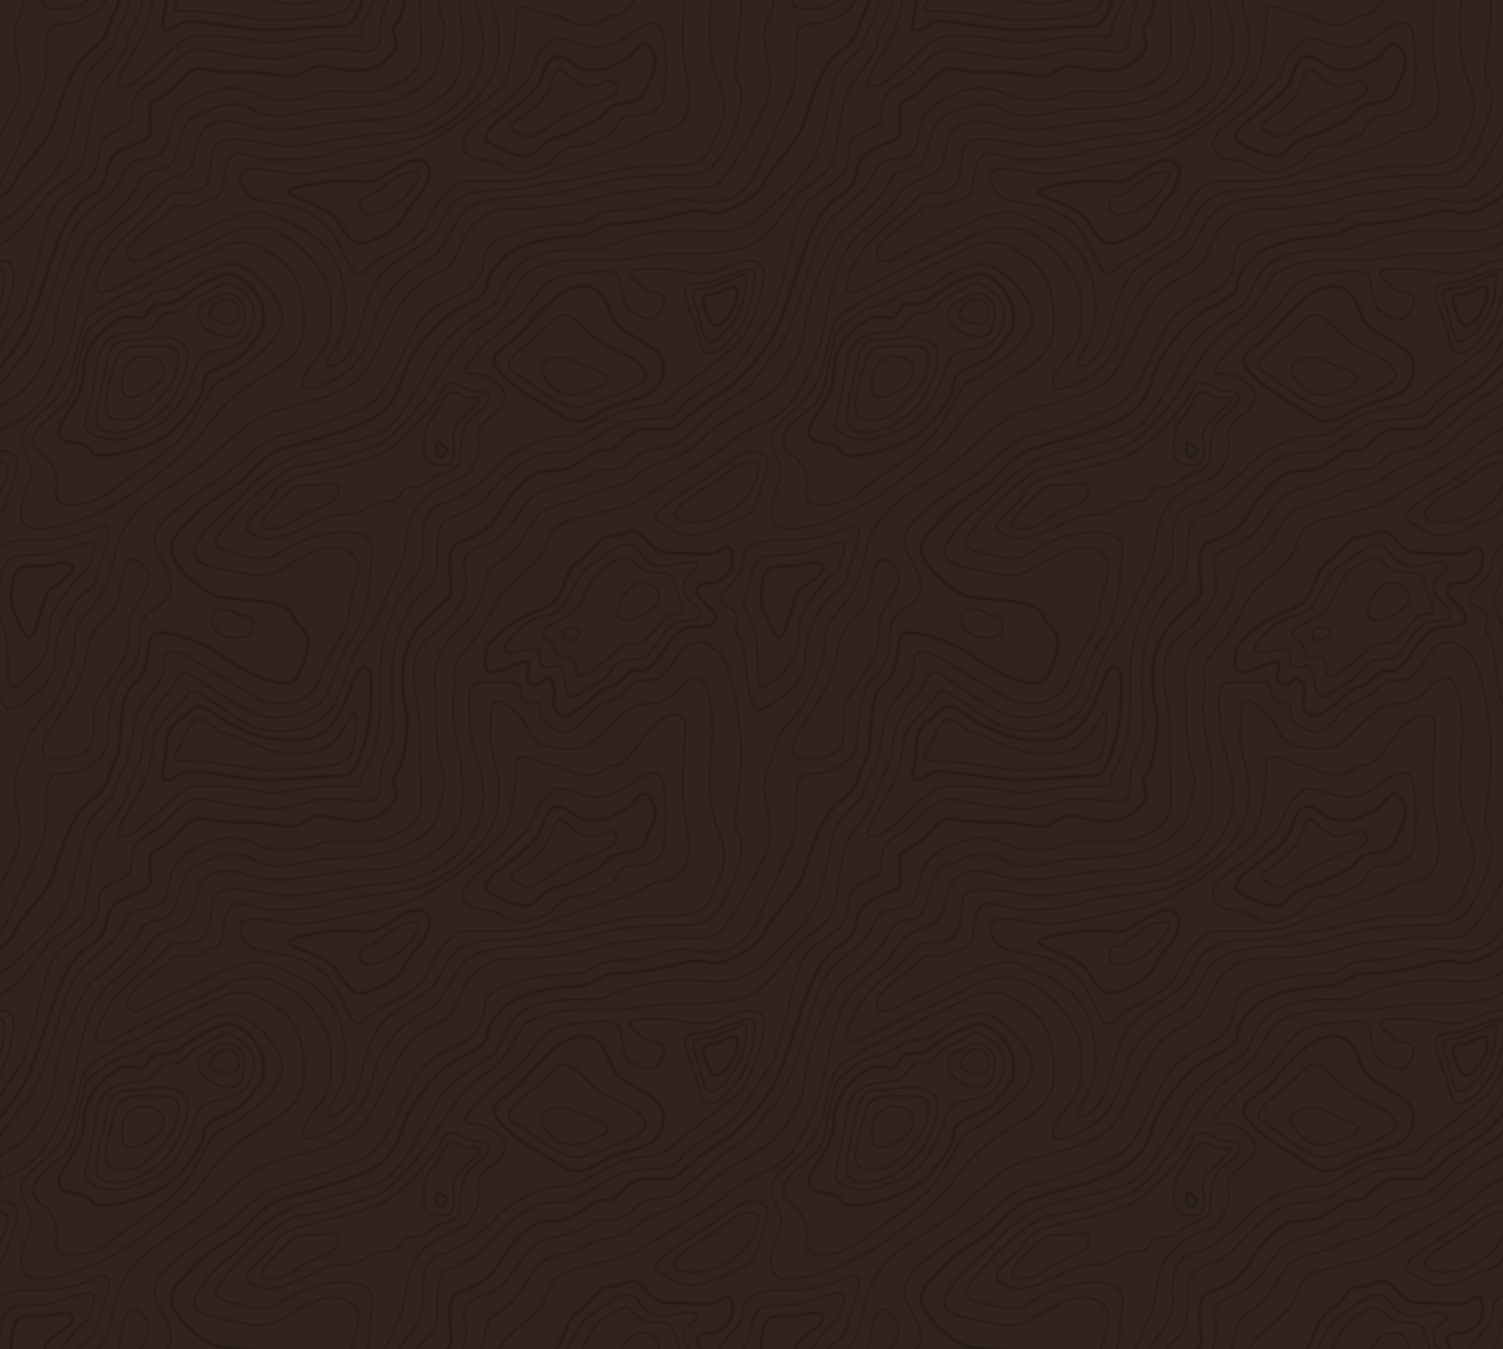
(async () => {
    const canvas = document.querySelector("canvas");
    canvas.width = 1503;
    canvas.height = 1349;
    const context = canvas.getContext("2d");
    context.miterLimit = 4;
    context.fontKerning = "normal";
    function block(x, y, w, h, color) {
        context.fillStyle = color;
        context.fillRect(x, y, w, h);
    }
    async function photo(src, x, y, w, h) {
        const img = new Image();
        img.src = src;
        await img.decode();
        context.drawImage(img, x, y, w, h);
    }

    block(0, 0, 1503, 1349, "rgb(49, 35, 30)");
    await photo("media/1.png", 0, 0, 1503, 1349);
})();
